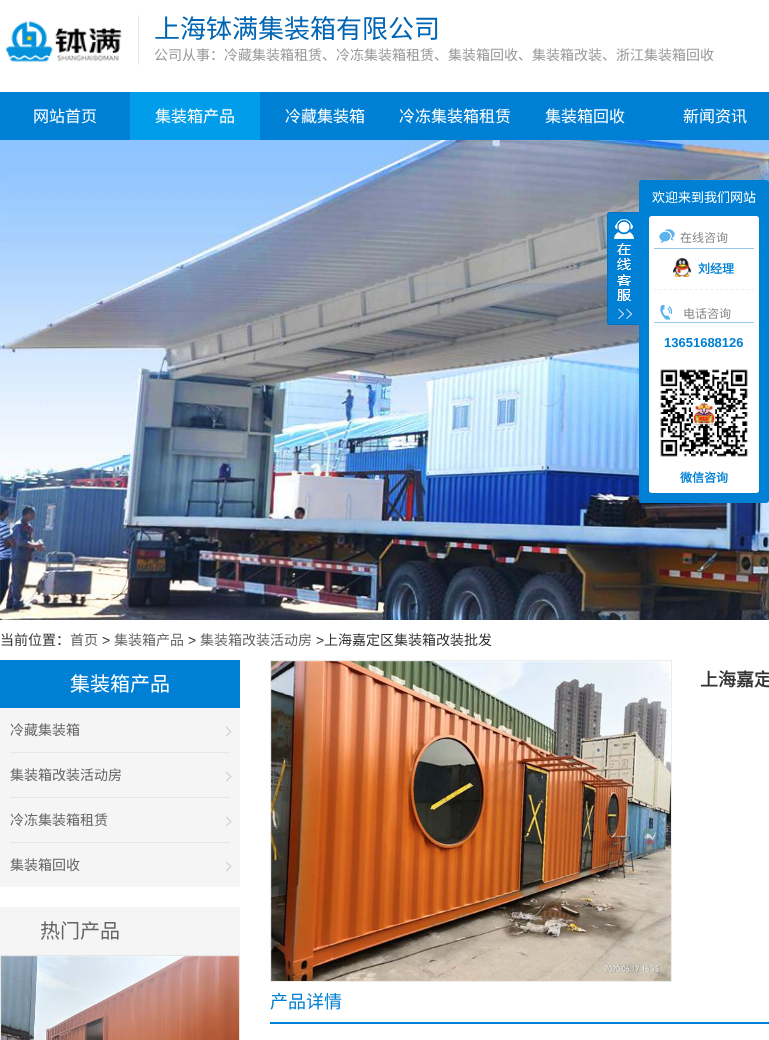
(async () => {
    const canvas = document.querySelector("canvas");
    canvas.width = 769;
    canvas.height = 1040;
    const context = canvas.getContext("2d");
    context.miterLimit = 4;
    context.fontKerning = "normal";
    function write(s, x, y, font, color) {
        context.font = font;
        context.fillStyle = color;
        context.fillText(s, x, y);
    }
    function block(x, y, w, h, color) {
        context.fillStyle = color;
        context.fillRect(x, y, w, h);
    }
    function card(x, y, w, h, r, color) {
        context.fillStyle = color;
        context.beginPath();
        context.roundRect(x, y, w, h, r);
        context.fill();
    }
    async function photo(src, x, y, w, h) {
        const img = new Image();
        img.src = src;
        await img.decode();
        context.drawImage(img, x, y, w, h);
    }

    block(0, 0, 769, 1040, "rgb(255, 255, 255)");
    await photo("media/1.png", 5, 21, 117, 41);
    block(138, 15, 1, 50, "rgb(230, 230, 230)");
    write("上海钵满集装箱有限公司", 154, 38, "26px Noto Sans CJK SC", "rgb(0, 101, 179)");
    write("公司从事：冷藏集装箱租赁、冷冻集装箱租赁、集装箱回收、集装箱改装、浙江集装箱回收", 154, 60, "14px Noto Sans CJK SC", "rgb(153, 153, 153)");
    block(0, 92, 769, 48, "rgb(0, 128, 213)");
    write("网站首页", 33, 122, "16px Noto Sans CJK SC", "rgb(255, 255, 255)");
    block(130, 92, 130, 48, "rgb(0, 157, 234)");
    write("集装箱产品", 155, 122, "16px Noto Sans CJK SC", "rgb(255, 255, 255)");
    write("冷藏集装箱", 285, 122, "16px Noto Sans CJK SC", "rgb(255, 255, 255)");
    write("冷冻集装箱租赁", 399, 122, "16px Noto Sans CJK SC", "rgb(255, 255, 255)");
    write("集装箱回收", 545, 122, "16px Noto Sans CJK SC", "rgb(255, 255, 255)");
    write("新闻资讯", 683, 122, "16px Noto Sans CJK SC", "rgb(255, 255, 255)");
    await photo("media/2.png", 0, 140, 769, 480);
    await photo("media/3.png", 607, 212, 32, 113);
    card(639, 180, 130, 323, 3, "rgb(0, 128, 213)");
    write("欢迎来到我们网站", 652, 202, "13px Noto Sans CJK SC", "rgb(255, 255, 255)");
    card(649, 216, 110, 277, 3, "rgb(255, 255, 255)");
    block(654, 248, 100, 1, "rgb(149, 199, 233)");
    await photo("media/4.png", 659, 229, 16, 14);
    write("在线咨询", 680, 242, "12px Noto Sans CJK SC", "rgb(136, 136, 136)");
    context.beginPath();
    context.moveTo(654, 289.5);
    context.lineTo(754, 289.5);
    context.strokeStyle = "rgb(238, 238, 238)";
    context.setLineDash([3, 2.11]);
    context.stroke();
    await photo("media/5.png", 673, 258, 18, 19);
    write("刘经理", 698, 273, "bold 12px Noto Sans CJK SC", "rgb(0, 128, 213)");
    block(654, 322, 100, 1, "rgb(149, 199, 233)");
    await photo("media/6.png", 660, 305, 12, 15);
    write("电话咨询", 683, 318, "12px Noto Sans CJK SC", "rgb(136, 136, 136)");
    write("13651688126", 664, 347, "bold 13px Liberation Sans", "rgb(0, 128, 213)");
    await photo("media/7.png", 660, 369, 88, 88);
    write("微信咨询", 680, 482, "bold 12px Noto Sans CJK SC", "rgb(0, 128, 213)");
    write("当前位置：", 0, 645, "14px Noto Sans CJK SC", "rgb(51, 51, 51)");
    write("首页", 70, 645, "14px Noto Sans CJK SC", "rgb(102, 102, 102)");
    write(">", 102, 645, "14px Liberation Sans", "rgb(51, 51, 51)");
    write("集装箱产品", 114, 645, "14px Noto Sans CJK SC", "rgb(102, 102, 102)");
    write(">", 188, 645, "14px Liberation Sans", "rgb(51, 51, 51)");
    write("集装箱改装活动房", 200, 645, "14px Noto Sans CJK SC", "rgb(102, 102, 102)");
    write(">", 316, 645, "14px Liberation Sans", "rgb(51, 51, 51)");
    write("上海嘉定区集装箱改装批发", 324, 645, "14px Noto Sans CJK SC", "rgb(51, 51, 51)");
    block(0, 660, 240, 48, "rgb(0, 128, 213)");
    write("集装箱产品", 70, 691, "20px Noto Sans CJK SC", "rgb(255, 255, 255)");
    block(0, 708, 240, 179, "rgb(245, 245, 245)");
    block(10, 752, 220, 1, "rgb(230, 230, 230)");
    write("冷藏集装箱", 10, 735, "14px Noto Sans CJK SC", "rgb(102, 102, 102)");
    context.fillStyle = "rgb(204, 204, 204)";
    context.beginPath();
    context.moveTo(226.5, 726.5);
    context.lineTo(231.5, 731.5);
    context.lineTo(230.5, 732);
    context.lineTo(226, 727.5);
    context.closePath();
    context.fill();
    context.beginPath();
    context.moveTo(230.5, 731);
    context.lineTo(231.5, 731.5);
    context.lineTo(226.5, 736.5);
    context.lineTo(226, 735.5);
    context.closePath();
    context.moveTo(226.5, 771.5);
    context.lineTo(231.5, 776.5);
    context.lineTo(230.5, 777);
    context.lineTo(226, 772.5);
    context.closePath();
    context.fill();
    block(10, 797, 220, 1, "rgb(230, 230, 230)");
    write("集装箱改装活动房", 10, 780, "14px Noto Sans CJK SC", "rgb(102, 102, 102)");
    context.fillStyle = "rgb(204, 204, 204)";
    context.beginPath();
    context.moveTo(230.5, 776);
    context.lineTo(231.5, 776.5);
    context.lineTo(226.5, 781.5);
    context.lineTo(226, 780.5);
    context.closePath();
    context.moveTo(226.5, 816.5);
    context.lineTo(231.5, 821.5);
    context.lineTo(230.5, 822);
    context.lineTo(226, 817.5);
    context.closePath();
    context.fill();
    block(10, 842, 220, 1, "rgb(230, 230, 230)");
    write("冷冻集装箱租赁", 10, 825, "14px Noto Sans CJK SC", "rgb(102, 102, 102)");
    context.fillStyle = "rgb(204, 204, 204)";
    context.beginPath();
    context.moveTo(230.5, 821);
    context.lineTo(231.5, 821.5);
    context.lineTo(226.5, 826.5);
    context.lineTo(226, 825.5);
    context.closePath();
    context.moveTo(226.5, 861.5);
    context.lineTo(231.5, 866.5);
    context.lineTo(230.5, 867);
    context.lineTo(226, 862.5);
    context.closePath();
    context.fill();
    write("集装箱回收", 10, 870, "14px Noto Sans CJK SC", "rgb(102, 102, 102)");
    context.fillStyle = "rgb(204, 204, 204)";
    context.beginPath();
    context.moveTo(230.5, 866);
    context.lineTo(231.5, 866.5);
    context.lineTo(226.5, 871.5);
    context.lineTo(226, 870.5);
    context.closePath();
    context.fill();
    block(0, 907, 240, 48, "rgb(245, 245, 245)");
    write("热门产品", 40, 938, "20px Noto Sans CJK SC", "rgb(102, 102, 102)");
    context.strokeStyle = "rgb(230, 230, 230)";
    context.setLineDash([]);
    context.strokeRect(0.5, 955.5, 239, 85);
    await photo("media/8.png", 1, 956, 238, 84);
    context.strokeStyle = "rgb(236, 236, 236)";
    context.strokeRect(270.5, 660.5, 401, 321);
    await photo("media/9.png", 271, 661, 400, 320);
    write("上海嘉定", 700, 686, "bold 18px Noto Sans CJK SC", "rgb(51, 51, 51)");
    block(270, 1022, 499, 2, "rgb(0, 128, 213)");
    write("产品详情", 270, 1008, "18px Noto Sans CJK SC", "rgb(0, 128, 213)");
})();
